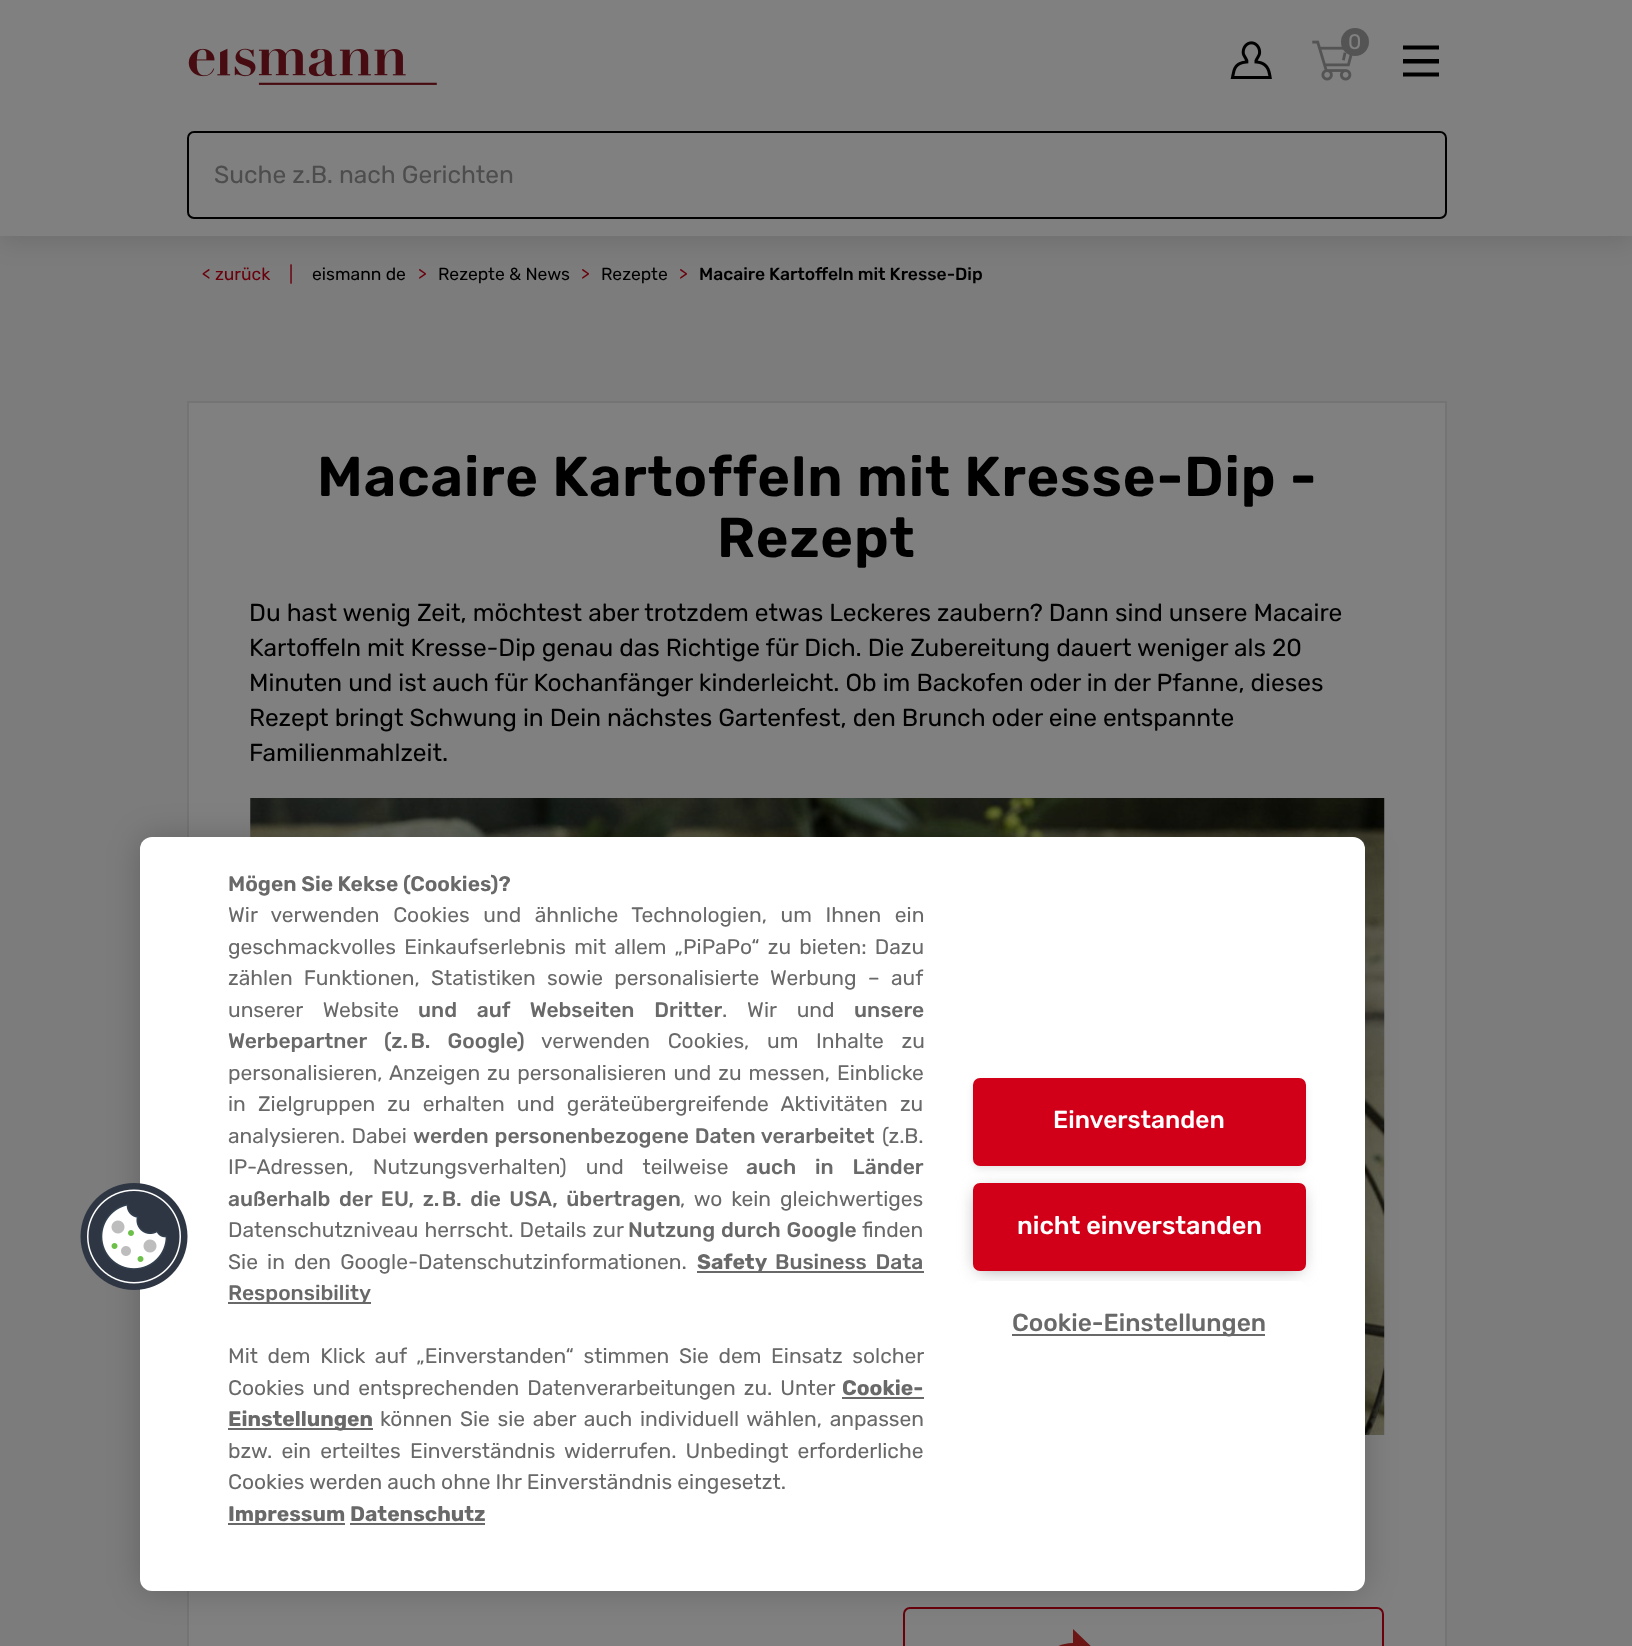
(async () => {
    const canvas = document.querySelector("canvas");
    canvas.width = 1632;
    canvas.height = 1646;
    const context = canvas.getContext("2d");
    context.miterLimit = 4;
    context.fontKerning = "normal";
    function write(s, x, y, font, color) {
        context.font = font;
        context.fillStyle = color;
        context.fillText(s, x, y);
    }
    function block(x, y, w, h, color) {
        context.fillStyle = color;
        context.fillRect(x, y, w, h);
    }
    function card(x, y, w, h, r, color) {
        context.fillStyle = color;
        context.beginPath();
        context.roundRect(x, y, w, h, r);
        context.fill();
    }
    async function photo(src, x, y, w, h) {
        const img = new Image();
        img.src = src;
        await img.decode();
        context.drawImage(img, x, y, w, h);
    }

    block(0, 0, 1632, 1646, "rgb(124, 124, 124)");
    context.fillStyle = "rgba(0, 0, 0, 0.1)";
    context.filter = "blur(12px)";
    context.beginPath();
    context.rect(0, 7, 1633, 236);
    context.fill();
    context.filter = "none";
    block(0, 0, 1632, 236, "rgb(128, 128, 128)");
    await photo("media/1.png", 1230, 41, 42, 38);
    await photo("media/2.png", 1312, 40, 41, 41);
    context.fillStyle = "rgb(84, 84, 84)";
    context.beginPath();
    context.arc(1355, 42, 14, 0, Math.PI * 2);
    context.fill();
    write("0", 1348, 49, "21px Rubik", "rgb(128, 128, 128)");
    context.fillStyle = "rgb(0, 0, 0)";
    context.beginPath();
    context.moveTo(1403, 45.5);
    context.lineTo(1439, 45.5);
    context.lineTo(1439, 49.5);
    context.lineTo(1403, 49.5);
    context.closePath();
    context.moveTo(1403, 59);
    context.lineTo(1439, 59);
    context.lineTo(1439, 63.5);
    context.lineTo(1403, 63.5);
    context.closePath();
    context.moveTo(1403, 72.5);
    context.lineTo(1439, 72.5);
    context.lineTo(1439, 76.5);
    context.lineTo(1403, 76.5);
    context.closePath();
    context.fill();
    await photo("media/3.png", 188, 48, 249, 37);
    context.beginPath();
    context.roundRect(188, 132, 1258, 86, 6);
    context.strokeStyle = "rgb(0, 0, 0)";
    context.lineWidth = 2;
    context.stroke();
    write("Suche z.B. nach Gerichten", 214, 183, "24.5px Rubik", "rgb(77, 77, 77)");
    write("< zurück", 202, 280, "17.5px Rubik", "rgb(105, 0, 12)");
    write("|", 289, 280, "17.5px Rubik", "rgb(105, 0, 12)");
    write("eismann de", 312, 280, "17.5px Rubik", "rgb(0, 0, 0)");
    write(">", 418, 280, "17.5px Rubik", "rgb(105, 0, 12)");
    write("Rezepte & News", 438, 280, "17.5px Rubik", "rgb(0, 0, 0)");
    write(">", 581, 280, "17.5px Rubik", "rgb(105, 0, 12)");
    write("Rezepte", 601, 280, "17.5px Rubik", "rgb(0, 0, 0)");
    write(">", 679, 280, "17.5px Rubik", "rgb(105, 0, 12)");
    write("Macaire Kartoffeln mit Kresse-Dip", 699, 280, "500 17.5px Rubik", "rgb(0, 0, 0)");
    context.fillStyle = "rgb(128, 128, 128)";
    context.beginPath();
    context.rect(188, 402, 1258, 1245);
    context.fill();
    context.strokeStyle = "rgb(116, 116, 116)";
    context.stroke();
    context.letterSpacing = "0.9px";
    write("Macaire Kartoffeln mit Kresse-Dip -", 317, 496, "600 56px Rubik", "rgb(0, 0, 0)");
    write("Rezept", 717, 557, "600 56px Rubik", "rgb(0, 0, 0)");
    context.letterSpacing = "0px";
    write("Du hast wenig Zeit, möchtest aber trotzdem etwas Leckeres zaubern? Dann sind unsere Macaire", 249, 621, "24.5px Rubik", "rgb(0, 0, 0)");
    write("Kartoffeln mit Kresse-Dip genau das Richtige für Dich. Die Zubereitung dauert weniger als 20", 249, 656, "24.5px Rubik", "rgb(0, 0, 0)");
    write("Minuten und ist auch für Kochanfänger kinderleicht. Ob im Backofen oder in der Pfanne, dieses", 249, 691, "24.5px Rubik", "rgb(0, 0, 0)");
    write("Rezept bringt Schwung in Dein nächstes Gartenfest, den Brunch oder eine entspannte", 249, 726, "24.5px Rubik", "rgb(0, 0, 0)");
    write("Familienmahlzeit.", 249, 761, "24.5px Rubik", "rgb(0, 0, 0)");
    await photo("media/4.png", 250, 798, 1135, 637);
    context.beginPath();
    context.roundRect(904, 1608, 479, 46, 6);
    context.strokeStyle = "rgb(105, 0, 12)";
    context.stroke();
    context.fillStyle = "rgb(107, 21, 21)";
    context.beginPath();
    context.moveTo(1097, 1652);
    context.lineTo(1073, 1629);
    context.lineTo(1073, 1643);
    context.bezierCurveTo(1049, 1644, 1045, 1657, 1045, 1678);
    context.bezierCurveTo(1052, 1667, 1055, 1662, 1073, 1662);
    context.lineTo(1073, 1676);
    context.closePath();
    context.fill();
    context.fillStyle = "rgba(0, 0, 0, 0.2)";
    context.filter = "blur(16px)";
    context.beginPath();
    context.roundRect(140, 837, 1225, 754, 12);
    context.fill();
    context.filter = "none";
    card(140, 837, 1225, 754, 12, "rgb(255, 255, 255)");
    await photo("media/5.png", 80, 1183, 108, 107);
    write("Mögen Sie Kekse (Cookies)?", 228, 891, "600 21px Rubik", "rgb(105, 105, 105)");
    context.wordSpacing = "8.5px";
    write("Wir verwenden Cookies und ähnliche Technologien, um Ihnen ein", 228, 922, "21px Rubik", "rgb(105, 105, 105)");
    context.wordSpacing = "3px";
    write("geschmackvolles Einkaufserlebnis mit allem „PiPaPo“ zu bieten: Dazu", 228, 954, "21px Rubik", "rgb(105, 105, 105)");
    context.wordSpacing = "6px";
    write("zählen Funktionen, Statistiken sowie personalisierte Werbung – auf", 228, 985, "21px Rubik", "rgb(105, 105, 105)");
    context.wordSpacing = "15px";
    write("unserer Website", 228, 1017, "21px Rubik", "rgb(105, 105, 105)");
    write("und auf Webseiten Dritter", 418, 1017, "500 21px Rubik", "rgb(105, 105, 105)");
    write(". Wir und", 722, 1017, "21px Rubik", "rgb(105, 105, 105)");
    context.wordSpacing = "0px";
    write("unsere", 854, 1017, "500 21px Rubik", "rgb(105, 105, 105)");
    context.wordSpacing = "12.5px";
    write("Werbepartner (z. B. Google)", 228, 1048, "500 21px Rubik", "rgb(105, 105, 105)");
    write("verwenden Cookies, um Inhalte zu", 541, 1048, "21px Rubik", "rgb(105, 105, 105)");
    context.wordSpacing = "1.75px";
    write("personalisieren, Anzeigen zu personalisieren und zu messen, Einblicke", 228, 1080, "21px Rubik", "rgb(105, 105, 105)");
    context.wordSpacing = "7px";
    write("in Zielgruppen zu erhalten und geräteübergreifende Aktivitäten zu", 228, 1111, "21px Rubik", "rgb(105, 105, 105)");
    context.wordSpacing = "1px";
    write("analysieren. Dabei", 228, 1143, "21px Rubik", "rgb(105, 105, 105)");
    write("werden personenbezogene Daten verarbeitet", 413, 1143, "500 21px Rubik", "rgb(105, 105, 105)");
    context.wordSpacing = "0px";
    write("(z.B.", 882, 1143, "21px Rubik", "rgb(105, 105, 105)");
    context.wordSpacing = "14px";
    write("IP-Adressen, Nutzungsverhalten) und teilweise", 228, 1174, "21px Rubik", "rgb(105, 105, 105)");
    write("auch in Länder", 746, 1174, "500 21px Rubik", "rgb(105, 105, 105)");
    context.wordSpacing = "3.75px";
    write("außerhalb der EU, z. B. die USA, übertragen", 228, 1206, "500 21px Rubik", "rgb(105, 105, 105)");
    write(", wo kein gleichwertiges", 680, 1206, "21px Rubik", "rgb(105, 105, 105)");
    context.wordSpacing = "1px";
    write("Datenschutzniveau herrscht. Details zur", 228, 1237, "21px Rubik", "rgb(105, 105, 105)");
    write("Nutzung durch Google", 628, 1237, "500 21px Rubik", "rgb(105, 105, 105)");
    context.wordSpacing = "0px";
    write("finden", 862, 1237, "21px Rubik", "rgb(105, 105, 105)");
    context.wordSpacing = "4px";
    write("Sie in den Google-Datenschutzinformationen.", 228, 1269, "21px Rubik", "rgb(105, 105, 105)");
    block(697, 1271, 227, 2, "rgb(105, 105, 105)");
    context.wordSpacing = "0px";
    write("Safety", 697, 1269, "bold 21px Rubik", "rgb(105, 105, 105)");
    context.wordSpacing = "4px";
    write("Business Data", 775, 1269, "500 21px Rubik", "rgb(105, 105, 105)");
    block(228, 1302, 143, 2, "rgb(105, 105, 105)");
    context.wordSpacing = "0px";
    write("Responsibility", 228, 1300, "500 21px Rubik", "rgb(105, 105, 105)");
    context.wordSpacing = "4.5px";
    write("Mit dem Klick auf „Einverstanden“ stimmen Sie dem Einsatz solcher", 228, 1363, "21px Rubik", "rgb(105, 105, 105)");
    context.wordSpacing = "2.75px";
    write("Cookies und entsprechenden Datenverarbeitungen zu. Unter", 228, 1395, "21px Rubik", "rgb(105, 105, 105)");
    context.wordSpacing = "0px";
    write("Cookie-", 842, 1395, "bold 21px Rubik", "rgb(105, 105, 105)");
    block(842, 1397, 82, 2, "rgb(105, 105, 105)");
    block(228, 1428, 145, 2, "rgb(105, 105, 105)");
    write("Einstellungen", 228, 1426, "bold 21px Rubik", "rgb(105, 105, 105)");
    context.wordSpacing = "2.5px";
    write("können Sie sie aber auch individuell wählen, anpassen", 380, 1426, "21px Rubik", "rgb(105, 105, 105)");
    context.wordSpacing = "4px";
    write("bzw. ein erteiltes Einverständnis widerrufen. Unbedingt erforderliche", 228, 1458, "21px Rubik", "rgb(105, 105, 105)");
    context.wordSpacing = "0px";
    write("Cookies werden auch ohne Ihr Einverständnis eingesetzt.", 228, 1489, "21px Rubik", "rgb(105, 105, 105)");
    block(228, 1523, 117, 2, "rgb(105, 105, 105)");
    write("Impressum", 228, 1521, "bold 21px Rubik", "rgb(105, 105, 105)");
    write("Datenschutz", 350, 1521, "bold 21px Rubik", "rgb(105, 105, 105)");
    block(350, 1523, 135, 2, "rgb(105, 105, 105)");
    context.fillStyle = "rgba(0, 0, 0, 0.1)";
    context.filter = "blur(3.5px)";
    context.beginPath();
    context.roundRect(973, 1082, 333, 87, 7);
    context.fill();
    context.filter = "none";
    context.fillStyle = "rgb(209, 0, 24)";
    context.beginPath();
    context.roundRect(974, 1079, 331, 86, 6);
    context.fill();
    context.strokeStyle = "rgb(209, 0, 24)";
    context.stroke();
    write("Einverstanden", 1053, 1128, "500 24.5px Rubik", "rgb(255, 255, 255)");
    context.fillStyle = "rgb(153, 153, 153)";
    context.filter = "blur(9px)";
    context.beginPath();
    context.roundRect(978, 1192, 322, 77, 2);
    context.fill();
    context.filter = "none";
    context.fillStyle = "rgb(209, 0, 24)";
    context.beginPath();
    context.roundRect(974, 1184, 331, 86, 6);
    context.fill();
    context.stroke();
    write("nicht einverstanden", 1017, 1234, "500 25.25px Rubik", "rgb(255, 255, 255)");
    card(973, 1281, 333, 88, 7, "rgb(255, 255, 255)");
    block(1012, 1334, 253, 2, "rgb(105, 105, 105)");
    write("Cookie-Einstellungen", 1012, 1331, "500 24.5px Rubik", "rgb(105, 105, 105)");
})();
